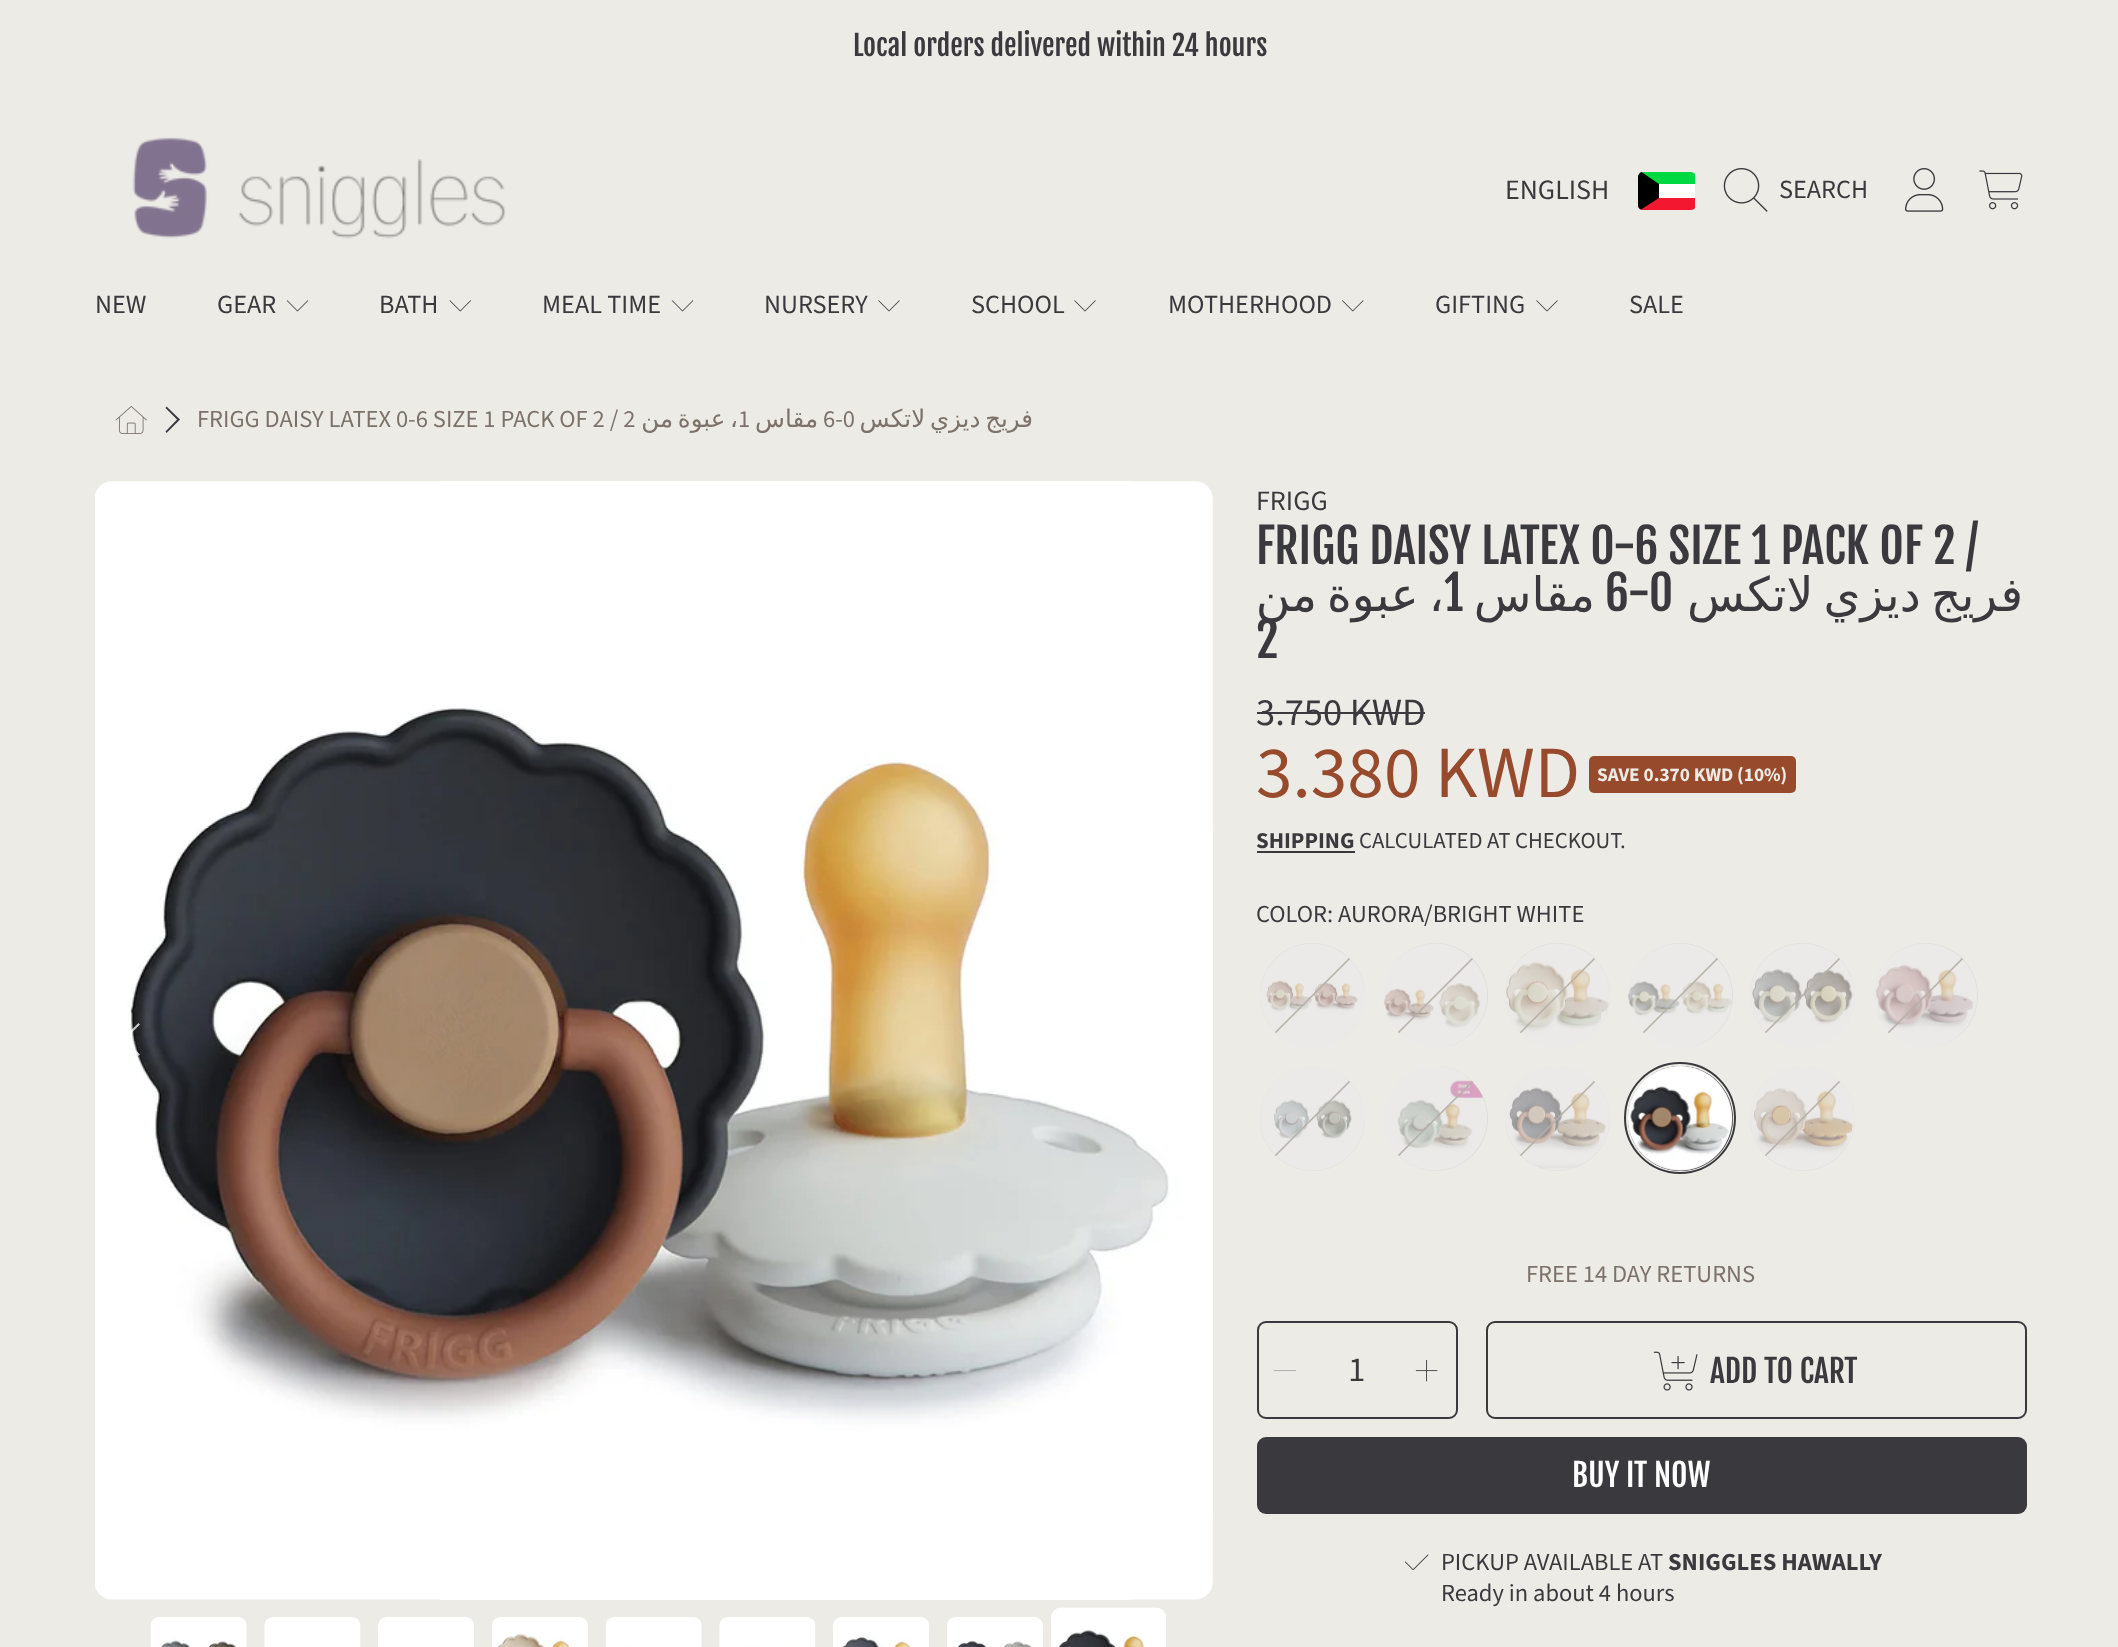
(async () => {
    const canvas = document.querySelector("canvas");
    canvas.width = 2118;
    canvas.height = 1647;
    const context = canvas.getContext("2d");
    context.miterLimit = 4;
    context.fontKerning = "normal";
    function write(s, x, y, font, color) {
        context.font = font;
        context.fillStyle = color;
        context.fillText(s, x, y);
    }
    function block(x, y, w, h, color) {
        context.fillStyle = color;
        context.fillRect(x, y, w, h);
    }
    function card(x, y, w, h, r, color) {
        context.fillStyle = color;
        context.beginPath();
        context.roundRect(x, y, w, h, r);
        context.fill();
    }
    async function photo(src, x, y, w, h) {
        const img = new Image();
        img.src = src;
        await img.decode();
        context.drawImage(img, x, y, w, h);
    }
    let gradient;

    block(0, 0, 2118, 1647, "rgb(237, 235, 230)");
    write("Local orders delivered within 24 hours", 853, 56, "28px Fjalla One", "rgb(58, 58, 62)");
    await photo("media/1.png", 132, 137, 374, 102);
    write("ENGLISH", 1505, 199, "28px Source Sans Pro", "rgb(58, 58, 62)");
    block(1659, 184, 36, 14, "rgb(255, 255, 255)");
    context.fillStyle = "rgb(243, 24, 48)";
    context.beginPath();
    context.moveTo(1695, 198);
    context.lineTo(1695, 208);
    context.bezierCurveTo(1694, 209, 1693, 210, 1691, 210);
    context.lineTo(1643, 210);
    context.bezierCurveTo(1640, 210, 1638, 208, 1638, 205);
    context.lineTo(1638, 198);
    context.closePath();
    context.fill();
    context.fillStyle = "rgb(0, 217, 65)";
    context.beginPath();
    context.moveTo(1643, 172);
    context.lineTo(1691, 172);
    context.bezierCurveTo(1693, 172, 1694, 173, 1695, 174);
    context.lineTo(1695, 184);
    context.lineTo(1638, 184);
    context.bezierCurveTo(1638, 180, 1637, 172, 1643, 172);
    context.closePath();
    context.fill();
    context.fillStyle = "rgb(0, 0, 0)";
    context.beginPath();
    context.moveTo(1641.5, 172);
    context.lineTo(1659, 184);
    context.lineTo(1659, 198);
    context.lineTo(1641, 209.5);
    context.bezierCurveTo(1639, 208.5, 1638, 207, 1638, 205);
    context.lineTo(1638, 177);
    context.bezierCurveTo(1638, 174.5, 1639.5, 173, 1641.5, 172);
    context.closePath();
    context.fill();
    await photo("media/2.png", 1723, 168, 45, 44);
    write("SEARCH", 1779, 198, "26.25px Source Sans Pro", "rgb(58, 58, 62)");
    await photo("media/3.png", 1905, 168, 39, 44);
    await photo("media/4.png", 1979, 170, 44, 40);
    write("NEW", 95, 313, "26.25px Source Sans Pro", "rgb(58, 58, 62)");
    write("GEAR", 217, 313, "26.25px Source Sans Pro", "rgb(58, 58, 62)");
    await photo("media/5.png", 286, 300, 23, 12);
    write("BATH", 379, 313, "26.25px Source Sans Pro", "rgb(58, 58, 62)");
    await photo("media/6.png", 449, 300, 22, 12);
    write("MEAL TIME", 542, 313, "26.25px Source Sans Pro", "rgb(58, 58, 62)");
    await photo("media/5.png", 671, 300, 23, 12);
    write("NURSERY", 764, 313, "26.25px Source Sans Pro", "rgb(58, 58, 62)");
    await photo("media/7.png", 878, 300, 22, 12);
    write("SCHOOL", 971, 313, "26.25px Source Sans Pro", "rgb(58, 58, 62)");
    await photo("media/7.png", 1074, 300, 22, 12);
    write("MOTHERHOOD", 1168, 313, "26.25px Source Sans Pro", "rgb(58, 58, 62)");
    await photo("media/8.png", 1342, 300, 22, 12);
    write("GIFTING", 1435, 313, "26.25px Source Sans Pro", "rgb(58, 58, 62)");
    await photo("media/7.png", 1536, 300, 22, 12);
    write("SALE", 1629, 313, "26.25px Source Sans Pro", "rgb(58, 58, 62)");
    await photo("media/9.png", 115, 406, 32, 28);
    context.beginPath();
    context.moveTo(178.5, 418);
    context.lineTo(165.5, 431.5);
    context.lineTo(166.5, 433);
    context.lineTo(180, 419.5);
    context.closePath();
    context.moveTo(180, 419.5);
    context.lineTo(166.5, 406.5);
    context.lineTo(165.5, 408);
    context.lineTo(178.5, 421);
    context.closePath();
    context.fill();
    write("FRIGG DAISY LATEX 0-6 SIZE 1 PACK OF 2 / 2", 197, 427, "24.5px Source Sans Pro", "rgb(124, 114, 106)");
    context.wordSpacing = "-3px";
    context.direction = "rtl";
    write("، عبوة من", 738, 427, "24.5px DejaVu Sans", "rgb(124, 114, 106)");
    context.wordSpacing = "0px";
    context.direction = "ltr";
    write("1", 738, 427, "24.5px Source Sans Pro", "rgb(124, 114, 106)");
    context.direction = "rtl";
    write("مقاس", 818, 427, "24.5px DejaVu Sans", "rgb(124, 114, 106)");
    context.direction = "ltr";
    write("6-0", 823, 427, "24.5px Source Sans Pro", "rgb(124, 114, 106)");
    context.wordSpacing = "-3px";
    context.direction = "rtl";
    write("فريج ديزي لاتكس", 1033, 427, "24.5px DejaVu Sans", "rgb(124, 114, 106)");
    await photo("media/10.png", 95, 481, 1118, 1119);
    context.fillStyle = "rgba(255, 255, 255, 0.75)";
    context.beginPath();
    context.moveTo(123.5, 1037.5);
    context.lineTo(140, 1054.5);
    context.lineTo(138, 1056);
    context.lineTo(121.5, 1039.5);
    context.closePath();
    context.moveTo(121.5, 1039.5);
    context.lineTo(138.5, 1023);
    context.lineTo(140, 1024.5);
    context.lineTo(123.5, 1041);
    context.closePath();
    context.fill();
    await photo("media/11.png", 150, 1617, 97, 30);
    await photo("media/12.png", 264, 1617, 97, 30);
    await photo("media/13.png", 378, 1617, 96, 30);
    await photo("media/14.png", 492, 1617, 96, 30);
    await photo("media/15.png", 605, 1617, 97, 30);
    await photo("media/16.png", 719, 1617, 97, 30);
    await photo("media/17.png", 833, 1617, 96, 30);
    await photo("media/18.png", 947, 1617, 96, 30);
    context.save();
    context.beginPath();
    context.rect(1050, 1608, 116, 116);
    context.clip();
    context.beginPath();
    context.moveTo(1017, 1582);
    context.lineTo(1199, 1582);
    context.lineTo(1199, 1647);
    context.lineTo(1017, 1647);
    context.closePath();
    context.moveTo(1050, 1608);
    context.lineTo(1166, 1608);
    context.lineTo(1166, 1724);
    context.lineTo(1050, 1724);
    context.closePath();
    context.clip("evenodd");
    context.fillStyle = "rgba(0, 0, 0, 0.5)";
    context.filter = "blur(10.5px)";
    context.beginPath();
    context.rect(1050, 1615, 116, 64);
    context.fill();
    context.filter = "none";
    context.restore();
    await photo("media/19.png", 1051, 1607, 115, 40);
    context.wordSpacing = "0px";
    context.direction = "ltr";
    write("FRIGG", 1256, 510, "28px Source Sans Pro", "rgb(58, 58, 62)");
    write("FRIGG DAISY LATEX 0-6 SIZE 1 PACK OF 2 /", 1256, 564, "47.25px Fjalla One", "rgb(58, 58, 62)");
    context.wordSpacing = "-5px";
    context.direction = "rtl";
    write("، عبوة من", 1444, 611, "47.25px DejaVu Sans", "rgb(58, 58, 62)");
    context.wordSpacing = "0px";
    context.direction = "ltr";
    write("1", 1444, 611, "47.25px Fjalla One", "rgb(58, 58, 62)");
    context.direction = "rtl";
    write("مقاس", 1595, 611, "47.25px DejaVu Sans", "rgb(58, 58, 62)");
    context.direction = "ltr";
    write("6-0", 1605, 611, "47.25px Fjalla One", "rgb(58, 58, 62)");
    context.wordSpacing = "-5px";
    context.direction = "rtl";
    write("فريج ديزي لاتكس", 2023, 611, "47.25px DejaVu Sans", "rgb(58, 58, 62)");
    context.wordSpacing = "0px";
    context.direction = "ltr";
    write("2", 1256, 658, "47.25px Fjalla One", "rgb(58, 58, 62)");
    write("3.750 KWD", 1256, 725, "38.5px Source Sans Pro", "rgb(58, 58, 62)");
    block(1257, 712, 168, 2, "rgb(58, 58, 62)");
    write("3.380 KWD", 1256, 797, "73.5px Source Sans Pro", "rgb(152, 75, 44)");
    card(1589, 756, 207, 37, 5, "rgb(152, 75, 44)");
    write("SAVE 0.370 KWD (10%)", 1597, 781, "bold 19.25px Source Sans Pro", "rgb(237, 235, 230)");
    write("SHIPPING", 1256, 848, "bold 22.75px Source Sans Pro", "rgb(58, 58, 62)");
    block(1257, 851, 98, 2, "rgb(58, 58, 62)");
    write("CALCULATED AT CHECKOUT.", 1359, 848, "22.75px Source Sans Pro", "rgb(58, 58, 62)");
    write("COLOR: AURORA/BRIGHT WHITE", 1256, 922, "24.5px Source Sans Pro", "rgb(58, 58, 62)");
    context.fillStyle = "rgb(223, 221, 217)";
    context.beginPath();
    context.arc(1312.5, 995.5, 52.5, 0, Math.PI * 2);
    context.fill();
    await photo("media/20.png", 1260, 943, 105, 105);
    gradient = context.createLinearGradient(1365, 1048, 1260, 943);
    gradient.addColorStop(0, "rgba(237, 235, 230, 0)");
    gradient.addColorStop(0.49, "rgba(181, 175, 168, 0)");
    gradient.addColorStop(0.5, "rgb(181, 175, 168)");
    gradient.addColorStop(0.51, "rgba(181, 175, 168, 0)");
    gradient.addColorStop(1, "rgba(237, 235, 230, 0)");
    context.fillStyle = gradient;
    context.beginPath();
    context.arc(1312.5, 995.5, 52.5, 0, Math.PI * 2);
    context.fill();
    context.fillStyle = "rgb(223, 221, 217)";
    context.beginPath();
    context.arc(1435.5, 995.5, 52.5, 0, Math.PI * 2);
    context.fill();
    await photo("media/21.png", 1383, 943, 104, 105);
    gradient = context.createLinearGradient(1488, 1048, 1383, 943);
    gradient.addColorStop(0, "rgba(237, 235, 230, 0)");
    gradient.addColorStop(0.49, "rgba(181, 175, 168, 0)");
    gradient.addColorStop(0.5, "rgb(181, 175, 168)");
    gradient.addColorStop(0.51, "rgba(181, 175, 168, 0)");
    gradient.addColorStop(1, "rgba(237, 235, 230, 0)");
    context.fillStyle = gradient;
    context.beginPath();
    context.arc(1435.5, 995.5, 52.5, 0, Math.PI * 2);
    context.fill();
    context.fillStyle = "rgb(223, 221, 217)";
    context.beginPath();
    context.arc(1557.5, 995.5, 52.5, 0, Math.PI * 2);
    context.fill();
    await photo("media/22.png", 1505, 943, 105, 105);
    gradient = context.createLinearGradient(1610, 1048, 1505, 943);
    gradient.addColorStop(0, "rgba(237, 235, 230, 0)");
    gradient.addColorStop(0.49, "rgba(181, 175, 168, 0)");
    gradient.addColorStop(0.5, "rgb(181, 175, 168)");
    gradient.addColorStop(0.51, "rgba(181, 175, 168, 0)");
    gradient.addColorStop(1, "rgba(237, 235, 230, 0)");
    context.fillStyle = gradient;
    context.beginPath();
    context.arc(1557.5, 995.5, 52.5, 0, Math.PI * 2);
    context.fill();
    context.fillStyle = "rgb(223, 221, 217)";
    context.beginPath();
    context.arc(1680.5, 995.5, 52.5, 0, Math.PI * 2);
    context.fill();
    await photo("media/23.png", 1628, 943, 104, 105);
    gradient = context.createLinearGradient(1733, 1048, 1628, 943);
    gradient.addColorStop(0, "rgba(237, 235, 230, 0)");
    gradient.addColorStop(0.49, "rgba(181, 175, 168, 0)");
    gradient.addColorStop(0.5, "rgb(181, 175, 168)");
    gradient.addColorStop(0.51, "rgba(181, 175, 168, 0)");
    gradient.addColorStop(1, "rgba(237, 235, 230, 0)");
    context.fillStyle = gradient;
    context.beginPath();
    context.arc(1680.5, 995.5, 52.5, 0, Math.PI * 2);
    context.fill();
    context.fillStyle = "rgb(223, 221, 217)";
    context.beginPath();
    context.arc(1802.5, 995.5, 52.5, 0, Math.PI * 2);
    context.fill();
    await photo("media/24.png", 1750, 943, 105, 105);
    gradient = context.createLinearGradient(1855, 1048, 1750, 943);
    gradient.addColorStop(0, "rgba(237, 235, 230, 0)");
    gradient.addColorStop(0.49, "rgba(181, 175, 168, 0)");
    gradient.addColorStop(0.5, "rgb(181, 175, 168)");
    gradient.addColorStop(0.51, "rgba(181, 175, 168, 0)");
    gradient.addColorStop(1, "rgba(237, 235, 230, 0)");
    context.fillStyle = gradient;
    context.beginPath();
    context.arc(1802.5, 995.5, 52.5, 0, Math.PI * 2);
    context.fill();
    context.fillStyle = "rgb(223, 221, 217)";
    context.beginPath();
    context.arc(1925.5, 995.5, 52.5, 0, Math.PI * 2);
    context.fill();
    await photo("media/25.png", 1873, 943, 104, 105);
    gradient = context.createLinearGradient(1978, 1048, 1873, 943);
    gradient.addColorStop(0, "rgba(237, 235, 230, 0)");
    gradient.addColorStop(0.49, "rgba(181, 175, 168, 0)");
    gradient.addColorStop(0.5, "rgb(181, 175, 168)");
    gradient.addColorStop(0.51, "rgba(181, 175, 168, 0)");
    gradient.addColorStop(1, "rgba(237, 235, 230, 0)");
    context.fillStyle = gradient;
    context.beginPath();
    context.arc(1925.5, 995.5, 52.5, 0, Math.PI * 2);
    context.fill();
    context.fillStyle = "rgb(223, 221, 217)";
    context.beginPath();
    context.arc(1312.5, 1118.5, 52.5, 0, Math.PI * 2);
    context.fill();
    await photo("media/26.png", 1260, 1066, 105, 105);
    gradient = context.createLinearGradient(1365, 1171, 1260, 1066);
    gradient.addColorStop(0, "rgba(237, 235, 230, 0)");
    gradient.addColorStop(0.49, "rgba(181, 175, 168, 0)");
    gradient.addColorStop(0.5, "rgb(181, 175, 168)");
    gradient.addColorStop(0.51, "rgba(181, 175, 168, 0)");
    gradient.addColorStop(1, "rgba(237, 235, 230, 0)");
    context.fillStyle = gradient;
    context.beginPath();
    context.arc(1312.5, 1118.5, 52.5, 0, Math.PI * 2);
    context.fill();
    context.fillStyle = "rgb(223, 221, 217)";
    context.beginPath();
    context.arc(1435.5, 1118.5, 52.5, 0, Math.PI * 2);
    context.fill();
    await photo("media/27.png", 1383, 1066, 104, 105);
    gradient = context.createLinearGradient(1488, 1171, 1383, 1066);
    gradient.addColorStop(0, "rgba(237, 235, 230, 0)");
    gradient.addColorStop(0.49, "rgba(181, 175, 168, 0)");
    gradient.addColorStop(0.5, "rgb(181, 175, 168)");
    gradient.addColorStop(0.51, "rgba(181, 175, 168, 0)");
    gradient.addColorStop(1, "rgba(237, 235, 230, 0)");
    context.fillStyle = gradient;
    context.beginPath();
    context.arc(1435.5, 1118.5, 52.5, 0, Math.PI * 2);
    context.fill();
    context.fillStyle = "rgb(223, 221, 217)";
    context.beginPath();
    context.arc(1557.5, 1118.5, 52.5, 0, Math.PI * 2);
    context.fill();
    await photo("media/28.png", 1505, 1066, 105, 105);
    gradient = context.createLinearGradient(1610, 1171, 1505, 1066);
    gradient.addColorStop(0, "rgba(237, 235, 230, 0)");
    gradient.addColorStop(0.49, "rgba(181, 175, 168, 0)");
    gradient.addColorStop(0.5, "rgb(181, 175, 168)");
    gradient.addColorStop(0.51, "rgba(181, 175, 168, 0)");
    gradient.addColorStop(1, "rgba(237, 235, 230, 0)");
    context.fillStyle = gradient;
    context.beginPath();
    context.arc(1557.5, 1118.5, 52.5, 0, Math.PI * 2);
    context.fill();
    context.beginPath();
    context.arc(1680, 1118, 55, 0, Math.PI * 2);
    context.strokeStyle = "rgb(58, 58, 62)";
    context.lineWidth = 2;
    context.stroke();
    context.fillStyle = "rgb(58, 58, 62)";
    context.beginPath();
    context.arc(1680.5, 1118.5, 52.5, 0, Math.PI * 2);
    context.fill();
    context.fillStyle = "rgba(58, 58, 62, 0.2)";
    context.beginPath();
    context.arc(1680.5, 1118.5, 52.5, 0, Math.PI * 2);
    context.fill();
    await photo("media/29.png", 1627, 1066, 106, 105);
    context.fillStyle = "rgb(223, 221, 217)";
    context.beginPath();
    context.arc(1802.5, 1118.5, 52.5, 0, Math.PI * 2);
    context.fill();
    await photo("media/30.png", 1750, 1066, 105, 105);
    gradient = context.createLinearGradient(1855, 1171, 1750, 1066);
    gradient.addColorStop(0, "rgba(237, 235, 230, 0)");
    gradient.addColorStop(0.49, "rgba(181, 175, 168, 0)");
    gradient.addColorStop(0.5, "rgb(181, 175, 168)");
    gradient.addColorStop(0.51, "rgba(181, 175, 168, 0)");
    gradient.addColorStop(1, "rgba(237, 235, 230, 0)");
    context.fillStyle = gradient;
    context.beginPath();
    context.arc(1802.5, 1118.5, 52.5, 0, Math.PI * 2);
    context.fill();
    write("FREE 14 DAY RETURNS", 1526, 1282, "24.5px Source Sans Pro", "rgb(124, 114, 106)");
    context.beginPath();
    context.roundRect(1258, 1322, 199, 96, 8);
    context.stroke();
    await photo("media/31.png", 1273, 1370, 23, 2);
    write("1", 1348, 1381, "35px Source Sans Pro", "rgb(58, 58, 62)");
    await photo("media/32.png", 1415, 1359, 23, 23);
    context.beginPath();
    context.roundRect(1487, 1322, 539, 96, 8);
    context.stroke();
    await photo("media/33.png", 1653, 1351, 45, 40);
    write("ADD TO CART", 1710, 1383, "31.5px Fjalla One", "rgb(58, 58, 62)");
    card(1257, 1437, 770, 77, 9, "rgb(58, 58, 62)");
    write("BUY IT NOW", 1572, 1487, "31.5px Fjalla One", "rgb(255, 255, 255)");
    await photo("media/34.png", 1404, 1554, 25, 17);
    write("PICKUP AVAILABLE AT", 1441, 1570, "24.5px Source Sans Pro", "rgb(58, 58, 62)");
    write("SNIGGLES HAWALLY", 1668, 1570, "bold 24.5px Source Sans Pro", "rgb(58, 58, 62)");
    write("Ready in about 4 hours", 1441, 1601, "24.5px Source Sans Pro", "rgb(58, 58, 62)");
})();
